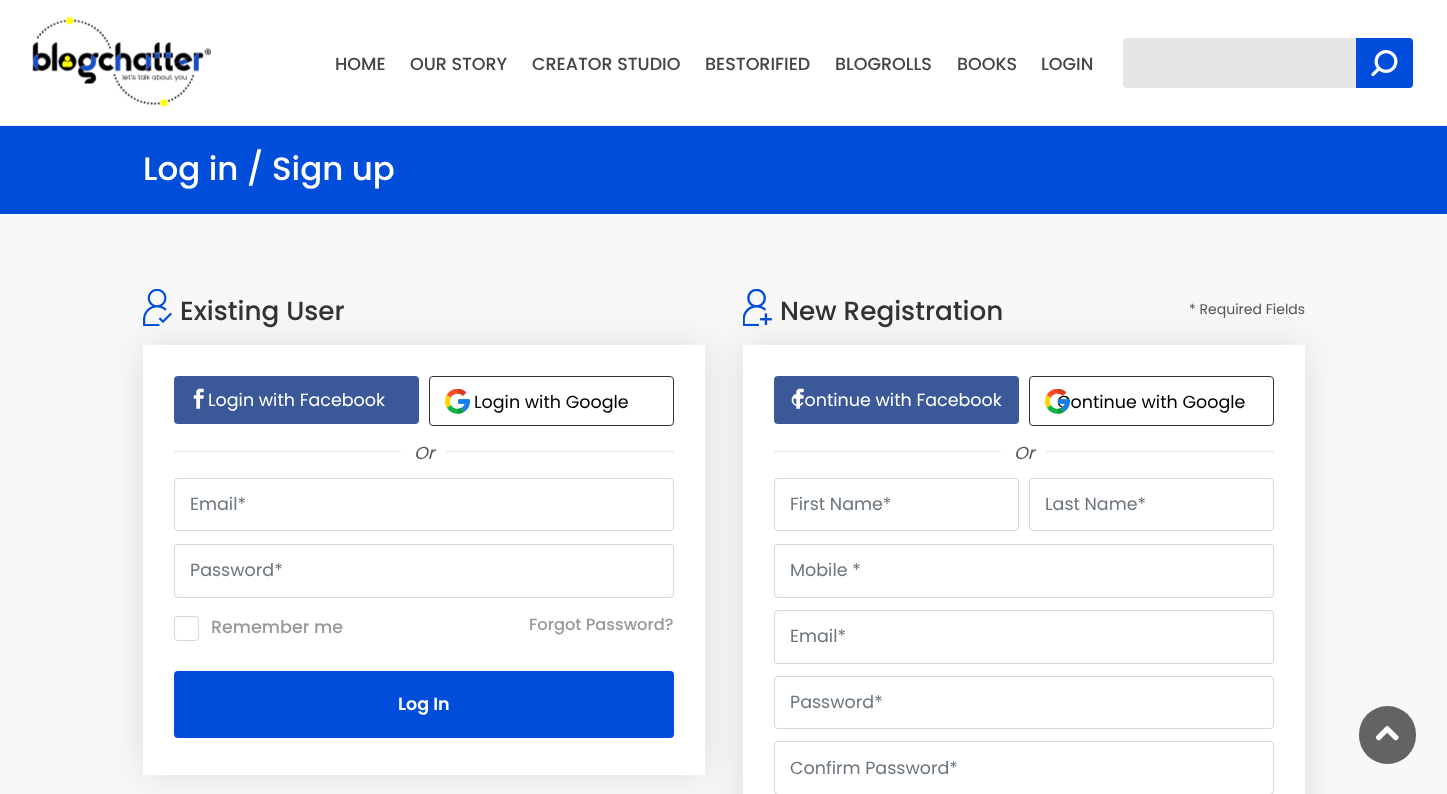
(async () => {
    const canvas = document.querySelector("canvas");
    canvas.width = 1447;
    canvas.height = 794;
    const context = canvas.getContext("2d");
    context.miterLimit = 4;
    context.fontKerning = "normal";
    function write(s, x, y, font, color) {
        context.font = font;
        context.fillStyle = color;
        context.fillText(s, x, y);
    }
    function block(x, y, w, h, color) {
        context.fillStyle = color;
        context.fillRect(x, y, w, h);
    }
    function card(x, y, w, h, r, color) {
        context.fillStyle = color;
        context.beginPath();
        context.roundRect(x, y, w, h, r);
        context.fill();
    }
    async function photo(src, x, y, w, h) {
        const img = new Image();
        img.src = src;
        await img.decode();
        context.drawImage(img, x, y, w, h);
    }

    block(0, 0, 1447, 794, "rgb(248, 248, 248)");
    block(0, 0, 1447, 125, "rgb(255, 255, 255)");
    block(0, 125, 1447, 1, "rgb(237, 237, 237)");
    await photo("media/1.png", 32, 16, 179, 91);
    write("HOME", 335, 70, "500 17.5px Poppins", "rgb(68, 68, 68)");
    write("OUR STORY", 410, 70, "500 17.5px Poppins", "rgb(68, 68, 68)");
    write("CREATOR STUDIO", 532, 70, "500 17.5px Poppins", "rgb(68, 68, 68)");
    write("BESTORIFIED", 705, 70, "500 17.5px Poppins", "rgb(68, 68, 68)");
    write("BLOGROLLS", 835, 70, "500 17.5px Poppins", "rgb(68, 68, 68)");
    write("BOOKS", 957, 70, "500 17.5px Poppins", "rgb(68, 68, 68)");
    write("LOGIN", 1041, 70, "500 17.5px Poppins", "rgb(68, 68, 68)");
    card(1123, 38, 287, 50, 4, "rgb(230, 230, 230)");
    context.fillStyle = "rgb(0, 77, 219)";
    context.beginPath();
    context.roundRect(1356, 38, 57, 50, [0, 4, 4, 0]);
    context.fill();
    await photo("media/2.png", 1371, 50, 27, 26);
    block(0, 126, 1447, 88, "rgb(0, 77, 218)");
    write("Log in / Sign up", 143, 180, "500 32.5px Poppins", "rgb(255, 255, 255)");
    await photo("media/3.png", 143, 289, 29, 37);
    write("Existing User", 180, 320, "500 26.25px Poppins", "rgb(51, 51, 51)");
    context.fillStyle = "rgba(0, 0, 0, 0.1)";
    context.filter = "blur(19px)";
    context.beginPath();
    context.rect(143, 345, 562, 430);
    context.fill();
    context.filter = "none";
    block(143, 345, 562, 430, "rgb(255, 255, 255)");
    card(174, 376, 245, 48, 4, "rgb(59, 89, 152)");
    await photo("media/4.png", 193, 388, 11, 21);
    write("Login with Facebook", 208, 406, "17.5px Poppins", "rgb(255, 255, 255)");
    context.beginPath();
    context.roundRect(429.5, 376.5, 244, 49, 3.5);
    context.strokeStyle = "rgb(51, 51, 51)";
    context.stroke();
    await photo("media/5.png", 445, 389, 25, 25);
    write("Login with Google", 474, 408, "17.5px Poppins", "rgb(0, 0, 0)");
    block(174, 451, 500, 1, "rgb(225, 232, 237)");
    block(401, 451, 45, 1, "rgb(255, 255, 255)");
    write("Or", 414, 459, "italic 17.5px Poppins", "rgb(85, 85, 85)");
    context.beginPath();
    context.roundRect(174.5, 478.5, 499, 52, 3.5);
    context.strokeStyle = "rgb(210, 216, 221)";
    context.stroke();
    write("Email*", 190, 510, "17.5px Poppins", "rgb(108, 117, 125)");
    context.beginPath();
    context.roundRect(174.5, 544.5, 499, 53, 3.5);
    context.stroke();
    write("Password*", 190, 576, "17.5px Poppins", "rgb(108, 117, 125)");
    context.beginPath();
    context.roundRect(174.5, 616.5, 24, 24, 3.5);
    context.stroke();
    write("Remember me", 211, 633, "500 17.5px Poppins", "rgb(153, 153, 153)");
    write("Forgot Password?", 529, 630, "500 16.25px Poppins", "rgb(153, 153, 153)");
    card(174, 671, 500, 67, 4, "rgb(0, 77, 218)");
    write("Log In", 398, 710, "600 17.5px Poppins", "rgb(255, 255, 255)");
    await photo("media/6.png", 743, 289, 29, 37);
    write("New Registration", 780, 320, "500 26.25px Poppins", "rgb(51, 51, 51)");
    write("* Required Fields", 1189, 314, "14px Poppins", "rgb(85, 85, 85)");
    context.fillStyle = "rgba(0, 0, 0, 0.1)";
    context.filter = "blur(19px)";
    context.beginPath();
    context.rect(743, 345, 562, 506);
    context.fill();
    context.filter = "none";
    block(743, 345, 562, 449, "rgb(255, 255, 255)");
    card(774, 376, 245, 48, 4, "rgb(59, 89, 152)");
    write("Continue with Facebook", 791, 406, "17.5px Poppins", "rgb(255, 255, 255)");
    await photo("media/7.png", 793, 388, 11, 21);
    context.beginPath();
    context.roundRect(1029.5, 376.5, 244, 49, 3.5);
    context.strokeStyle = "rgb(51, 51, 51)";
    context.stroke();
    write("Continue with Google", 1057, 408, "17.5px Poppins", "rgb(0, 0, 0)");
    await photo("media/8.png", 1045, 389, 25, 25);
    block(774, 451, 500, 1, "rgb(225, 232, 237)");
    block(1001, 451, 45, 1, "rgb(255, 255, 255)");
    write("Or", 1014, 459, "italic 17.5px Poppins", "rgb(85, 85, 85)");
    context.beginPath();
    context.roundRect(774.5, 478.5, 244, 52, 3.5);
    context.strokeStyle = "rgb(210, 216, 221)";
    context.stroke();
    write("First Name*", 790, 510, "17.5px Poppins", "rgb(108, 117, 125)");
    context.beginPath();
    context.roundRect(1029.5, 478.5, 244, 52, 3.5);
    context.stroke();
    write("Last Name*", 1045, 510, "17.5px Poppins", "rgb(108, 117, 125)");
    context.beginPath();
    context.roundRect(774.5, 544.5, 499, 53, 3.5);
    context.stroke();
    write("Mobile *", 790, 576, "17.5px Poppins", "rgb(108, 117, 125)");
    context.beginPath();
    context.roundRect(774.5, 610.5, 499, 53, 3.5);
    context.stroke();
    write("Email*", 790, 642, "17.5px Poppins", "rgb(108, 117, 125)");
    context.beginPath();
    context.roundRect(774.5, 676.5, 499, 52, 3.5);
    context.stroke();
    write("Password*", 790, 708, "17.5px Poppins", "rgb(108, 117, 125)");
    context.beginPath();
    context.roundRect(774.5, 741.5, 499, 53, 3.5);
    context.stroke();
    write("Confirm Password*", 790, 774, "17.5px Poppins", "rgb(108, 117, 125)");
    card(1359, 706, 57, 58, 28.5, "rgb(99, 99, 99)");
    await photo("media/9.png", 1375, 726, 24, 15);
})();
